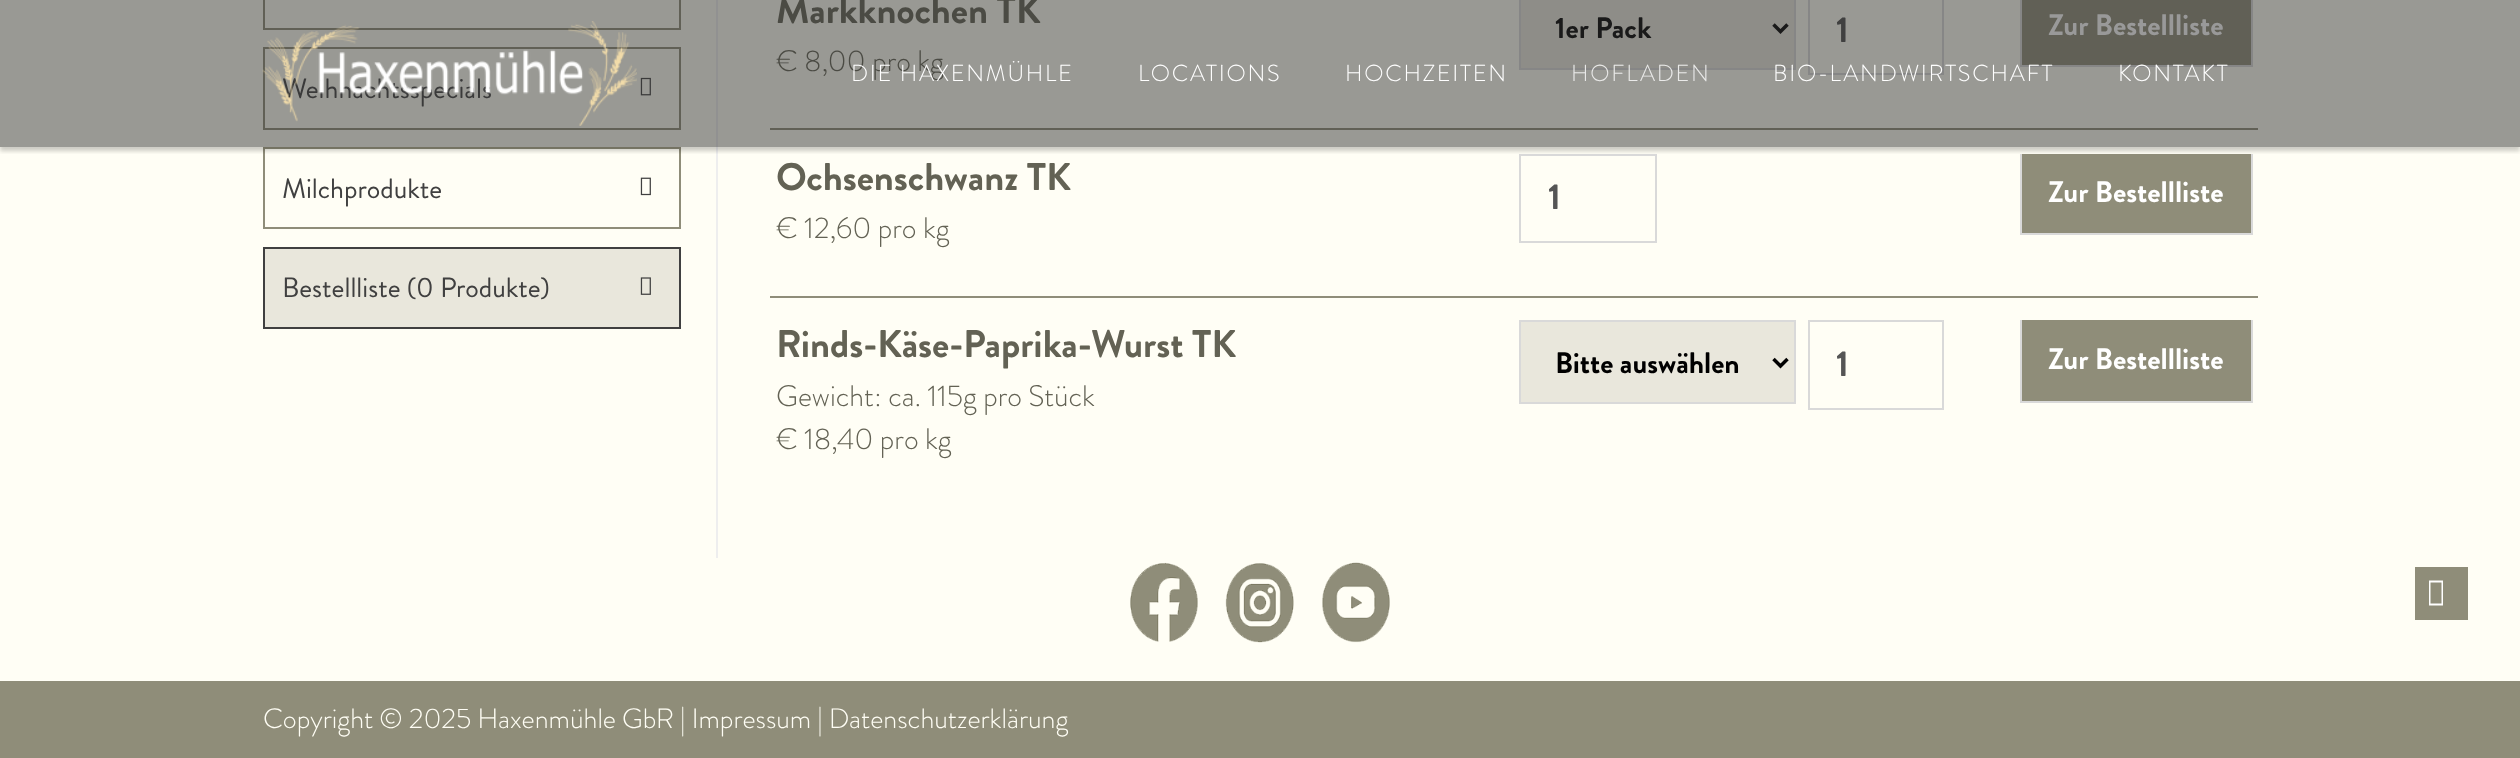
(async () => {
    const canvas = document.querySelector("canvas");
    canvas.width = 2520;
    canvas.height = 758;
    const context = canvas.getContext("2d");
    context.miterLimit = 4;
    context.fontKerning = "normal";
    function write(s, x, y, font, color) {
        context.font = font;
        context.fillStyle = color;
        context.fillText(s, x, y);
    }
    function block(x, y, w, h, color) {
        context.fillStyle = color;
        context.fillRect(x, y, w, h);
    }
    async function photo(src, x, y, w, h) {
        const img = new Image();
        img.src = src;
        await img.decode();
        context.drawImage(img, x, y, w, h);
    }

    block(0, 0, 2520, 758, "rgb(255, 254, 245)");
    block(0, 0, 2520, 147, "rgb(153, 153, 148)");
    block(716, 147, 2, 411, "rgb(238, 238, 238)");
    block(716, 0, 2, 147, "rgb(145, 145, 145)");
    context.strokeStyle = "rgb(97, 96, 86)";
    context.lineWidth = 2;
    context.strokeRect(264, -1, 416, 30);
    context.strokeRect(264, 48, 416, 81);
    write("Weihnachtsspecials", 282, 98, "28px Brandon Grotesque", "rgb(58, 58, 58)");
    await photo("media/1.png", 640, 77, 11, 19);
    context.strokeStyle = "rgb(143, 141, 121)";
    context.strokeRect(264, 148, 416, 80);
    write("Milchprodukte", 282, 198, "28px Brandon Grotesque", "rgb(64, 64, 64)");
    await photo("media/2.png", 640, 177, 11, 19);
    context.fillStyle = "rgb(233, 231, 220)";
    context.beginPath();
    context.rect(264, 248, 416, 80);
    context.fill();
    context.strokeStyle = "rgb(64, 64, 64)";
    context.stroke();
    write("Bestellliste (0 Produkte)", 282, 297, "28px Brandon Grotesque", "rgb(64, 64, 64)");
    await photo("media/3.png", 640, 277, 11, 18);
    write("Markknochen TK", 776, 23, "bold 38.5px Brandon Grotesque", "rgb(75, 75, 68)");
    write("€ 8,00 pro kg", 776, 71, "300 29.75px Brandon Grotesque", "rgb(75, 75, 68)");
    context.fillStyle = "rgb(142, 141, 136)";
    context.beginPath();
    context.rect(1520, -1, 275, 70);
    context.fill();
    context.strokeStyle = "rgb(134, 134, 134)";
    context.stroke();
    context.beginPath();
    context.moveTo(1773.5, 24.5);
    context.lineTo(1780.5, 31.5);
    context.lineTo(1787.5, 24.5);
    context.strokeStyle = "rgb(26, 26, 26)";
    context.lineWidth = 3.5;
    context.stroke();
    write("1er Pack", 1555, 38, "bold 29.5px Brandon Grotesque", "rgb(26, 26, 26)");
    context.strokeStyle = "rgb(134, 134, 134)";
    context.lineWidth = 2;
    context.strokeRect(1809, -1, 134, 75);
    write("1", 1836, 42, "bold 36px Brandon Grotesque", "rgb(64, 64, 64)");
    block(2022, 0, 229, 65, "rgb(97, 96, 86)");
    block(2251, 0, 2, 67, "rgb(134, 134, 134)");
    block(2020, 65, 232, 2, "rgb(134, 134, 134)");
    block(2020, 0, 2, 67, "rgb(134, 134, 134)");
    write("Zur Bestellliste", 2048, 35, "bold 29.75px Brandon Grotesque", "rgb(153, 153, 153)");
    block(770, 128, 1488, 2, "rgb(97, 96, 86)");
    write("Ochsenschwanz TK", 776, 190, "bold 38.5px Brandon Grotesque", "rgb(99, 98, 84)");
    write("€ 12,60 pro kg", 776, 238, "300 29.75px Brandon Grotesque", "rgb(99, 98, 84)");
    context.strokeStyle = "rgb(217, 217, 217)";
    context.strokeRect(1520, 155, 136, 87);
    write("1", 1548, 209, "bold 36px Brandon Grotesque", "rgb(85, 85, 85)");
    block(2022, 154, 229, 79, "rgb(143, 141, 121)");
    block(2251, 154, 2, 81, "rgb(217, 217, 217)");
    block(2020, 233, 232, 2, "rgb(217, 217, 217)");
    block(2020, 154, 2, 81, "rgb(217, 217, 217)");
    write("Zur Bestellliste", 2048, 202, "bold 29.75px Brandon Grotesque", "rgb(255, 255, 255)");
    block(770, 296, 1488, 2, "rgb(143, 141, 121)");
    write("Rinds-Käse-Paprika-Wurst TK", 776, 357, "bold 38.5px Brandon Grotesque", "rgb(99, 98, 84)");
    write("Gewicht: ca. 115g pro Stück", 776, 406, "300 29.75px Brandon Grotesque", "rgb(99, 98, 84)");
    write("€ 18,40 pro kg", 776, 449, "300 29.75px Brandon Grotesque", "rgb(99, 98, 84)");
    context.fillStyle = "rgb(233, 231, 220)";
    context.beginPath();
    context.rect(1520, 321, 275, 82);
    context.fill();
    context.stroke();
    context.beginPath();
    context.moveTo(1773.5, 359);
    context.lineTo(1780.5, 366);
    context.lineTo(1787.5, 359);
    context.strokeStyle = "rgb(0, 0, 0)";
    context.lineWidth = 3.5;
    context.stroke();
    write("Bitte auswählen", 1555, 373, "bold 29.5px Brandon Grotesque", "rgb(0, 0, 0)");
    context.strokeStyle = "rgb(217, 217, 217)";
    context.lineWidth = 2;
    context.strokeRect(1809, 321, 134, 88);
    write("1", 1836, 376, "bold 36px Brandon Grotesque", "rgb(85, 85, 85)");
    block(2022, 320, 229, 81, "rgb(143, 141, 121)");
    block(2251, 320, 2, 83, "rgb(217, 217, 217)");
    block(2020, 401, 232, 2, "rgb(217, 217, 217)");
    block(2020, 320, 2, 83, "rgb(217, 217, 217)");
    write("Zur Bestellliste", 2048, 369, "bold 29.75px Brandon Grotesque", "rgb(255, 255, 255)");
    context.save();
    context.beginPath();
    context.rect(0, 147, 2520, 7);
    context.clip();
    context.fillStyle = "rgba(0, 0, 0, 0.2)";
    context.filter = "blur(2px)";
    context.beginPath();
    context.rect(0, 4, 2520, 147);
    context.fill();
    context.filter = "none";
    context.restore();
    await photo("media/4.png", 262, 21, 375, 105);
    context.letterSpacing = "1.75px";
    write("DIE HAXENMÜHLE", 851, 81, "300 23.1px Brandon Grotesque", "rgb(255, 255, 255)");
    write("LOCATIONS", 1138, 81, "300 23.1px Brandon Grotesque", "rgb(255, 255, 255)");
    write("HOCHZEITEN", 1345, 81, "300 23.1px Brandon Grotesque", "rgb(255, 255, 255)");
    write("HOFLADEN", 1571, 81, "300 23.1px Brandon Grotesque", "rgb(234, 234, 233)");
    write("BIO-LANDWIRTSCHAFT", 1773, 81, "300 23.1px Brandon Grotesque", "rgb(255, 255, 255)");
    write("KONTAKT", 2118, 81, "300 23.1px Brandon Grotesque", "rgb(255, 255, 255)");
    await photo("media/5.png", 1130, 562, 68, 80);
    await photo("media/6.png", 1225, 563, 69, 80);
    await photo("media/7.png", 1322, 562, 68, 81);
    block(2415, 567, 53, 53, "rgb(143, 141, 121)");
    context.fillStyle = "rgb(255, 255, 255)";
    context.beginPath();
    context.moveTo(2429, 605.5);
    context.lineTo(2429, 580.5);
    context.lineTo(2443, 580.5);
    context.lineTo(2443, 605.5);
    context.closePath();
    context.moveTo(2430.5, 603.5);
    context.lineTo(2441.5, 603.5);
    context.lineTo(2441.5, 582.5);
    context.lineTo(2430.5, 582.5);
    context.closePath();
    context.fill();
    block(0, 681, 2520, 77, "rgb(143, 141, 121)");
    context.letterSpacing = "0px";
    write("Copyright © 2025 Haxenmühle GbR | Impressum | Datenschutzerklärung", 263, 728, "300 28px Brandon Grotesque", "rgb(255, 254, 245)");
})();
